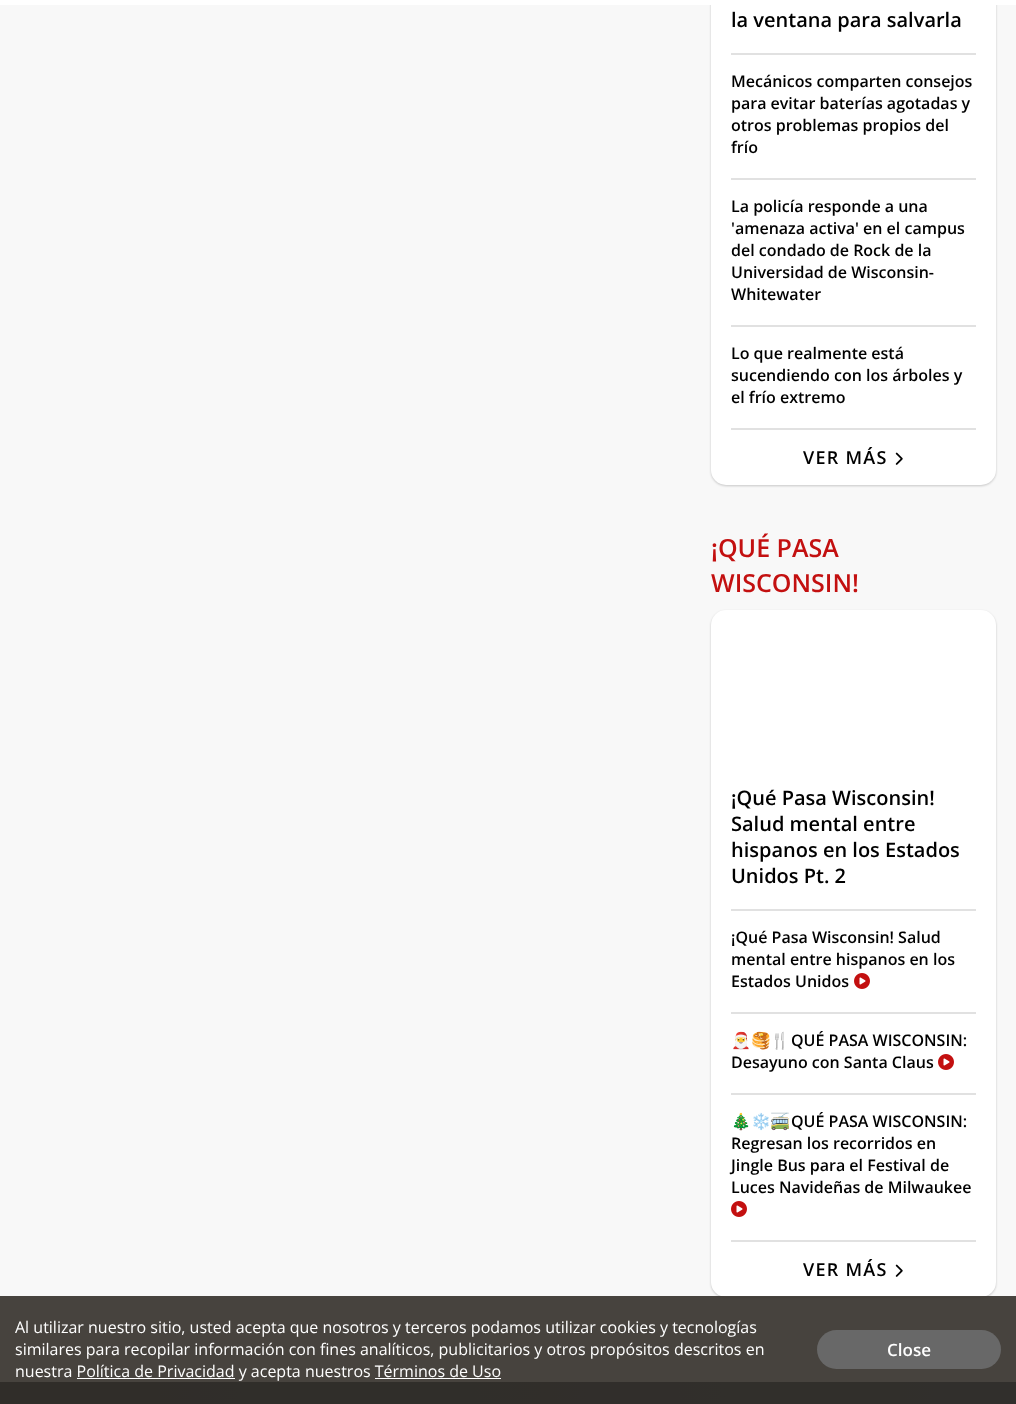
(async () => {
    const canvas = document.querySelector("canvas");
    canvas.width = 1016;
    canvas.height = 1404;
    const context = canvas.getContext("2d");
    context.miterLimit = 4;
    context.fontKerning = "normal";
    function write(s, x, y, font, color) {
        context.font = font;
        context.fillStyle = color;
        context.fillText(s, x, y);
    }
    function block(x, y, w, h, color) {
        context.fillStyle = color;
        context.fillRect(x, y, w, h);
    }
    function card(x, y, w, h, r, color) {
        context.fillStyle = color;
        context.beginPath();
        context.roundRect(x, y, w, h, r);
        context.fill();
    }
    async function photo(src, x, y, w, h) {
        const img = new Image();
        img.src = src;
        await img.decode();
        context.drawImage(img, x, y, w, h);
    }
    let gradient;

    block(0, 0, 1016, 1404, "rgb(248, 248, 248)");
    context.fillStyle = "rgba(0, 0, 0, 0.2)";
    context.filter = "blur(1px)";
    context.beginPath();
    context.roundRect(711, -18, 285, 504, 15);
    context.fill();
    context.filter = "none";
    card(711, -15, 285, 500, 15, "rgb(255, 255, 255)");
    block(0, 0, 1016, 5, "rgb(255, 255, 255)");
    block(731, 53, 245, 2, "rgb(225, 225, 225)");
    write("la ventana para salvarla", 731, 27, "600 20px Open Sans", "rgb(0, 0, 0)");
    block(731, 178, 245, 2, "rgb(225, 225, 225)");
    write("Mecánicos comparten consejos", 731, 87, "600 16px Open Sans", "rgb(0, 0, 0)");
    write("para evitar baterías agotadas y", 731, 109, "600 16px Open Sans", "rgb(0, 0, 0)");
    write("otros problemas propios del", 731, 131, "600 16px Open Sans", "rgb(0, 0, 0)");
    write("frío", 731, 153, "600 16px Open Sans", "rgb(0, 0, 0)");
    block(731, 325, 245, 2, "rgb(225, 225, 225)");
    write("La policía responde a una", 731, 212, "600 16px Open Sans", "rgb(0, 0, 0)");
    write("'amenaza activa' en el campus", 731, 234, "600 16px Open Sans", "rgb(0, 0, 0)");
    write("del condado de Rock de la", 731, 256, "600 16px Open Sans", "rgb(0, 0, 0)");
    write("Universidad de Wisconsin-", 731, 278, "600 16px Open Sans", "rgb(0, 0, 0)");
    write("Whitewater", 731, 300, "600 16px Open Sans", "rgb(0, 0, 0)");
    block(731, 428, 245, 2, "rgb(225, 225, 225)");
    write("Lo que realmente está", 731, 359, "600 16px Open Sans", "rgb(0, 0, 0)");
    write("sucendiendo con los árboles y", 731, 381, "600 16px Open Sans", "rgb(0, 0, 0)");
    write("el frío extremo", 731, 403, "600 16px Open Sans", "rgb(0, 0, 0)");
    context.letterSpacing = "1.25px";
    write("VER MÁS", 803, 464, "600 18px Open Sans", "rgb(0, 0, 0)");
    await photo("media/1.png", 895, 452, 8, 13);
    context.letterSpacing = "0px";
    write("¡QUÉ PASA", 711, 557, "600 25px Open Sans", "rgb(195, 16, 16)");
    write("WISCONSIN!", 711, 592, "600 25px Open Sans", "rgb(195, 16, 16)");
    context.fillStyle = "rgba(0, 0, 0, 0.2)";
    context.filter = "blur(1px)";
    context.beginPath();
    context.roundRect(711, 611, 285, 687, 15);
    context.fill();
    context.filter = "none";
    card(711, 610, 285, 687, 15, "rgb(255, 255, 255)");
    block(731, 909, 245, 2, "rgb(225, 225, 225)");
    write("¡Qué Pasa Wisconsin!", 731, 805, "600 20px Open Sans", "rgb(0, 0, 0)");
    write("Salud mental entre", 731, 831, "600 20px Open Sans", "rgb(0, 0, 0)");
    write("hispanos en los Estados", 731, 857, "600 20px Open Sans", "rgb(0, 0, 0)");
    write("Unidos Pt. 2", 731, 883, "600 20px Open Sans", "rgb(0, 0, 0)");
    block(731, 1012, 245, 2, "rgb(225, 225, 225)");
    write("¡Qué Pasa Wisconsin! Salud", 731, 943, "600 16px Open Sans", "rgb(0, 0, 0)");
    write("mental entre hispanos en los", 731, 965, "600 16px Open Sans", "rgb(0, 0, 0)");
    write("Estados Unidos", 731, 987, "600 16px Open Sans", "rgb(0, 0, 0)");
    await photo("media/2.png", 854, 973, 16, 16);
    block(731, 1093, 245, 2, "rgb(225, 225, 225)");
    write("🎅🥞🍴", 731, 1046, "bold 16px Noto Color Emoji", "rgb(0, 0, 0)");
    write("QUÉ PASA WISCONSIN:", 791, 1046, "600 16px Open Sans", "rgb(0, 0, 0)");
    write("Desayuno con Santa Claus", 731, 1068, "600 16px Open Sans", "rgb(0, 0, 0)");
    await photo("media/2.png", 938, 1054, 16, 16);
    block(731, 1240, 245, 2, "rgb(225, 225, 225)");
    write("🎄❄️🚎", 731, 1127, "bold 16px Noto Color Emoji", "rgb(0, 0, 0)");
    write("QUÉ PASA WISCONSIN:", 791, 1127, "600 16px Open Sans", "rgb(0, 0, 0)");
    write("Regresan los recorridos en", 731, 1149, "600 16px Open Sans", "rgb(0, 0, 0)");
    write("Jingle Bus para el Festival de", 731, 1171, "600 16px Open Sans", "rgb(0, 0, 0)");
    write("Luces Navideñas de Milwaukee", 731, 1193, "600 16px Open Sans", "rgb(0, 0, 0)");
    await photo("media/2.png", 731, 1201, 16, 16);
    context.letterSpacing = "1.25px";
    write("VER MÁS", 803, 1276, "600 18px Open Sans", "rgb(0, 0, 0)");
    await photo("media/1.png", 895, 1264, 8, 13);
    gradient = context.createLinearGradient(0, 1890, 1016, 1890);
    gradient.addColorStop(0, "rgb(23, 35, 45)");
    gradient.addColorStop(1, "rgb(36, 56, 71)");
    context.fillStyle = gradient;
    context.fillRect(0, 1382, 1016, 22);
    block(0, 1296, 1016, 108, "rgba(51, 47, 41, 0.9)");
    context.letterSpacing = "0px";
    write("Al utilizar nuestro sitio, usted acepta que nosotros y terceros podamos utilizar cookies y tecnologías", 15, 1333, "16px Open Sans", "rgb(254, 254, 254)");
    write("similares para recopilar información con fines analíticos, publicitarios y otros propósitos descritos en", 15, 1355, "16px Open Sans", "rgb(254, 254, 254)");
    write("nuestra Política de Privacidad y acepta nuestros Términos de Uso", 15, 1377, "16px Open Sans", "rgb(254, 254, 254)");
    block(77, 1378, 158, 1, "rgb(254, 254, 254)");
    block(375, 1378, 126, 1, "rgb(254, 254, 254)");
    card(817, 1330, 184, 39, 19.5, "rgb(104, 104, 104)");
    write("Close", 887, 1356, "600 17px Open Sans", "rgb(254, 254, 254)");
})();
